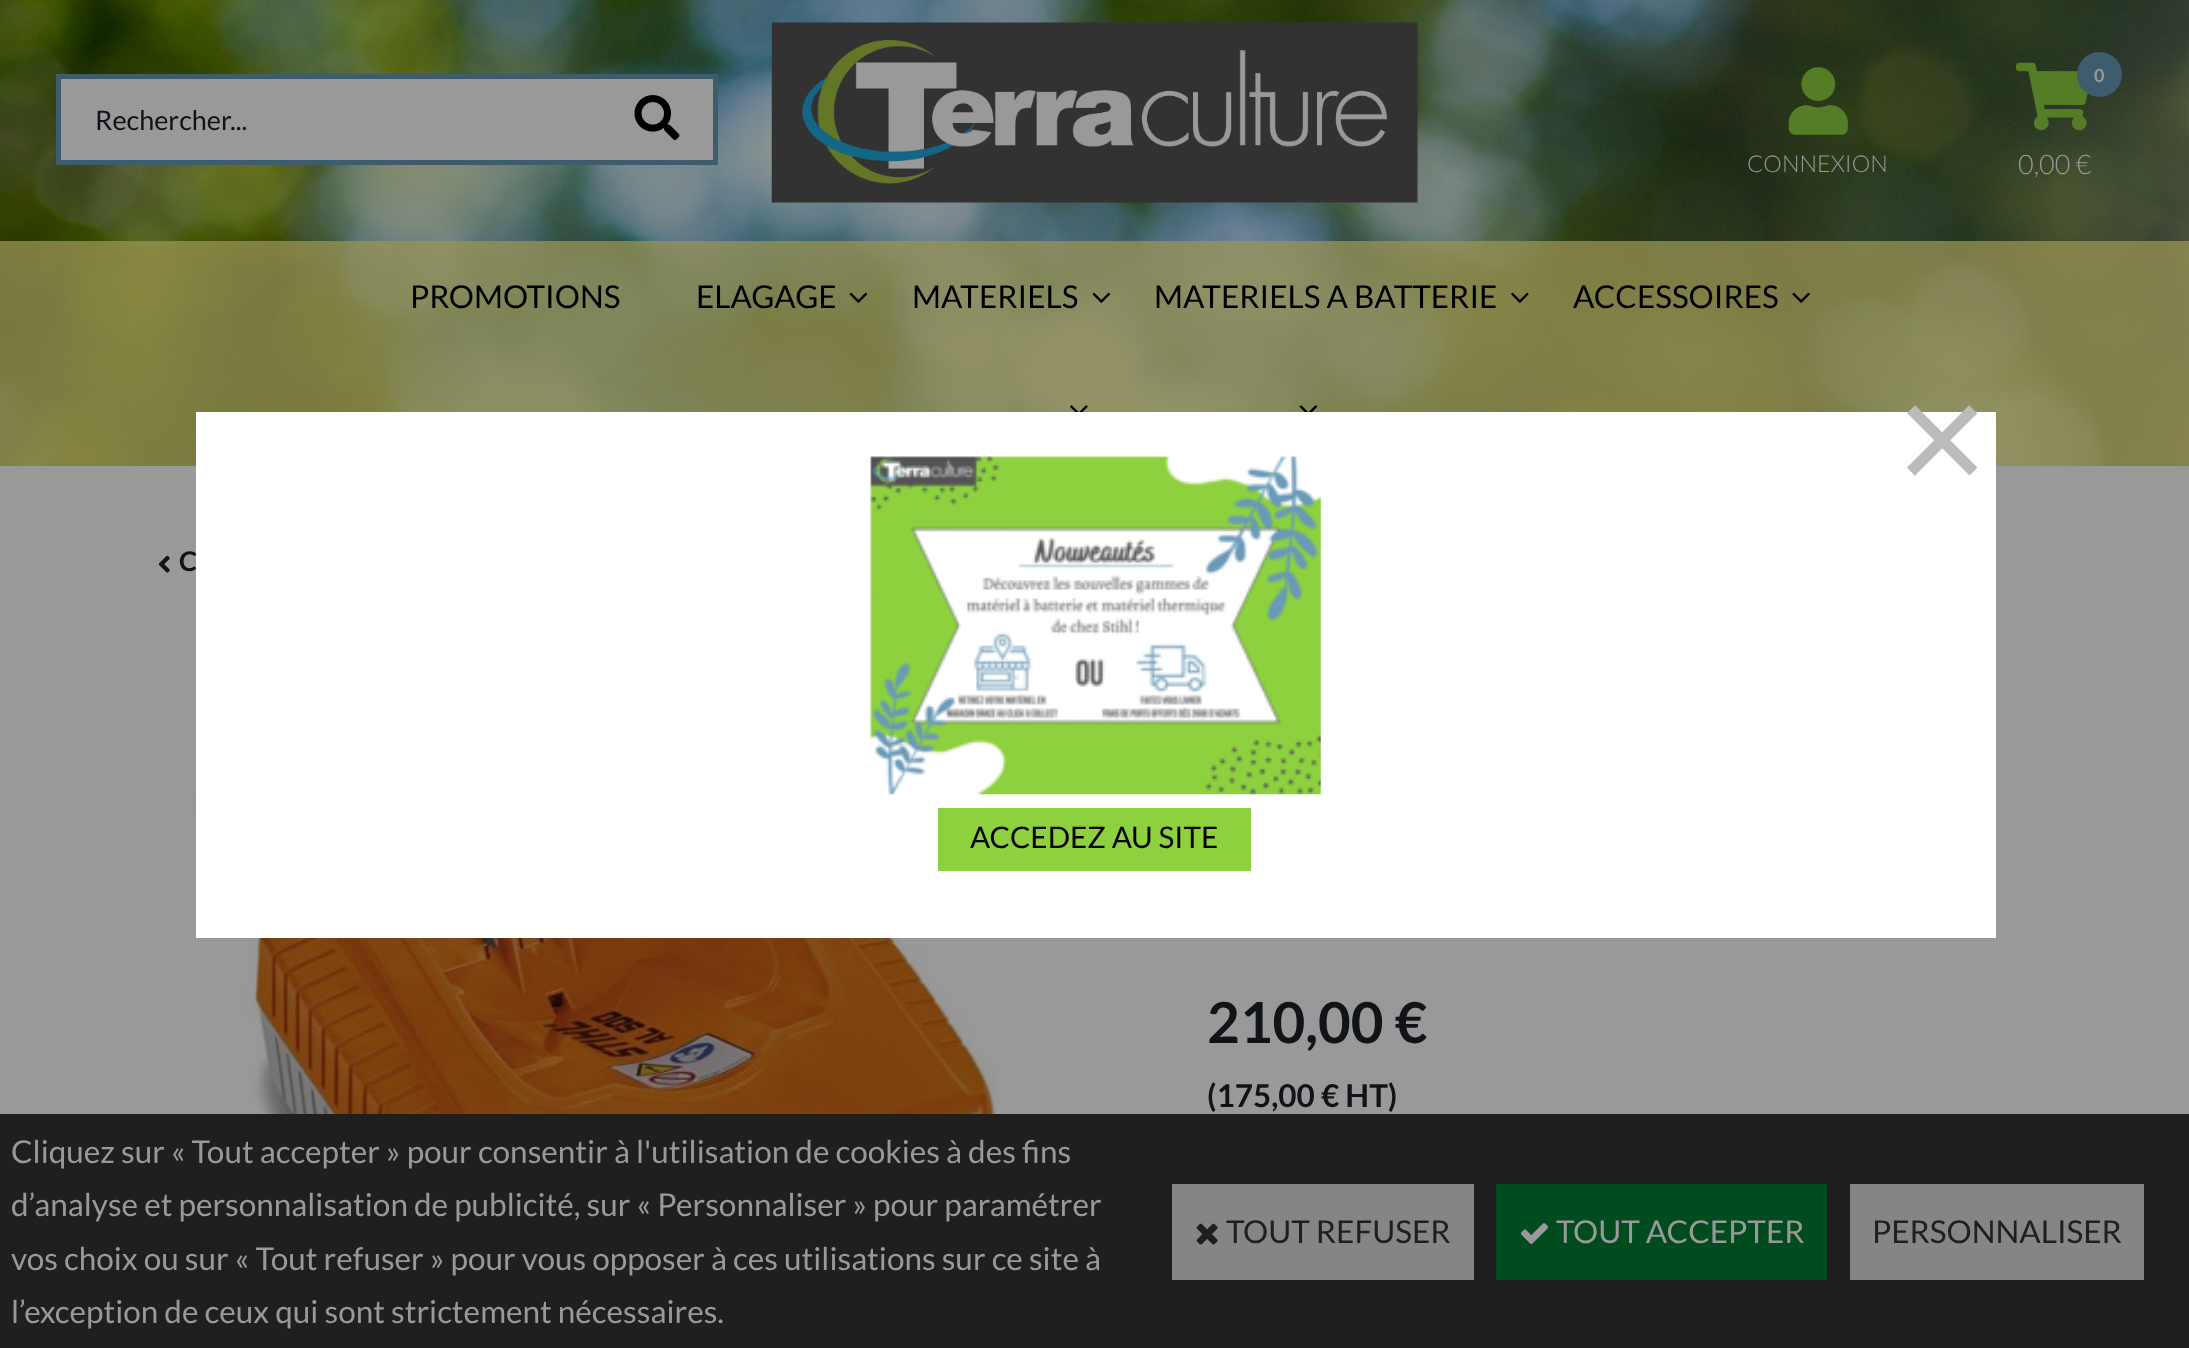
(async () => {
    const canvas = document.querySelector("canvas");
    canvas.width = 2189;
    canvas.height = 1348;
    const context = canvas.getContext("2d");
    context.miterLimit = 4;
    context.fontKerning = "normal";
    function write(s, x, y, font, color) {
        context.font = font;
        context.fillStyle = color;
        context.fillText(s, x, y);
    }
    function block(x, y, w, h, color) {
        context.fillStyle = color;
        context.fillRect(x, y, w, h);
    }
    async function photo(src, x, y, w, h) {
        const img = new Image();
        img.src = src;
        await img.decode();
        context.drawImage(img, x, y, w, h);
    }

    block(0, 0, 2189, 1348, "rgb(153, 153, 153)");
    await photo("media/1.png", 0, 0, 2189, 466);
    block(61, 79, 652, 81, "rgb(153, 153, 153)");
    block(56, 74, 662, 5, "rgb(63, 92, 110)");
    block(56, 160, 545, 5, "rgb(63, 92, 110)");
    block(56, 74, 5, 90, "rgb(63, 92, 110)");
    write("Rechercher...", 95, 130, "27px Lato", "rgb(16, 19, 23)");
    block(713, 74, 5, 90, "rgb(63, 92, 110)");
    block(601, 160, 117, 5, "rgb(63, 92, 110)");
    await photo("media/2.png", 634, 95, 46, 45);
    await photo("media/3.png", 771, 22, 647, 181);
    await photo("media/4.png", 1788, 67, 60, 68);
    write("CONNEXION", 1747, 172, "300 23.25px Lato", "rgb(153, 153, 153)");
    await photo("media/5.png", 2016, 62, 72, 69);
    context.fillStyle = "rgb(63, 92, 110)";
    context.beginPath();
    context.arc(2099.5, 74.5, 22.5, 0, Math.PI * 2);
    context.fill();
    write("0", 2094, 82, "bold 18px Lato", "rgb(153, 153, 153)");
    write("0,00 €", 2018, 174, "300 27px Lato", "rgb(153, 153, 153)");
    block(0, 241, 2189, 225, "rgba(153, 148, 85, 0.5)");
    block(0, 241, 2189, 225, "rgba(153, 148, 85, 0.5)");
    write("PROMOTIONS", 410, 308, "31.5px Lato", "rgb(0, 0, 0)");
    write("ELAGAGE", 696, 308, "31.5px Lato", "rgb(0, 0, 0)");
    await photo("media/6.png", 849, 292, 19, 11);
    write("MATERIELS", 912, 308, "31.5px Lato", "rgb(0, 0, 0)");
    await photo("media/7.png", 1092, 292, 19, 11);
    write("MATERIELS A BATTERIE", 1154, 308, "31.5px Lato", "rgb(0, 0, 0)");
    await photo("media/8.png", 1511, 292, 18, 11);
    write("ACCESSOIRES", 1573, 308, "31.5px Lato", "rgb(0, 0, 0)");
    await photo("media/9.png", 1792, 292, 18, 11);
    await photo("media/10.png", 1070, 405, 18, 7);
    await photo("media/11.png", 1299, 405, 19, 7);
    await photo("media/12.png", 158, 555, 12, 18);
    write("C", 179, 571, "bold 27px Lato", "rgb(16, 19, 23)");
    await photo("media/13.png", 191, 655, 806, 459);
    write("210,00 €", 1207, 1043, "bold 56.5px Lato", "rgb(16, 19, 23)");
    write("(175,00 € HT)", 1207, 1107, "bold 31.5px Lato", "rgb(16, 19, 23)");
    block(0, 1114, 2189, 234, "rgb(31, 31, 31)");
    write("Cliquez sur « Tout accepter » pour consentir à l'utilisation de cookies à des fins", 11, 1163, "31.5px Lato", "rgb(153, 153, 153)");
    write("d’analyse et personnalisation de publicité, sur « Personnaliser » pour paramétrer", 11, 1216, "31.5px Lato", "rgb(153, 153, 153)");
    write("vos choix ou sur « Tout refuser » pour vous opposer à ces utilisations sur ce site à", 11, 1270, "31.5px Lato", "rgb(153, 153, 153)");
    write("l’exception de ceux qui sont strictement nécessaires.", 11, 1323, "31.5px Lato", "rgb(153, 153, 153)");
    block(1172, 1184, 302, 96, "rgb(133, 133, 133)");
    await photo("media/14.png", 1196, 1223, 22, 22);
    write("TOUT REFUSER", 1226, 1243, "31.5px Lato", "rgb(31, 31, 31)");
    block(1496, 1184, 331, 96, "rgb(0, 76, 31)");
    await photo("media/15.png", 1520, 1223, 29, 21);
    write("TOUT ACCEPTER", 1556, 1243, "31.5px Lato", "rgb(153, 153, 153)");
    block(1850, 1184, 294, 96, "rgb(133, 133, 133)");
    write("PERSONNALISER", 1872, 1243, "31.5px Lato", "rgb(31, 31, 31)");
    block(196, 412, 1800, 526, "rgb(255, 255, 255)");
    write("×", 1896, 493, "158px Liberation Sans", "rgb(187, 187, 187)");
    await photo("media/16.png", 870, 456, 451, 339);
    block(938, 808, 313, 63, "rgb(141, 209, 63)");
    write("ACCEDEZ AU SITE", 970, 848, "29.75px Lato", "rgb(0, 0, 0)");
})();
